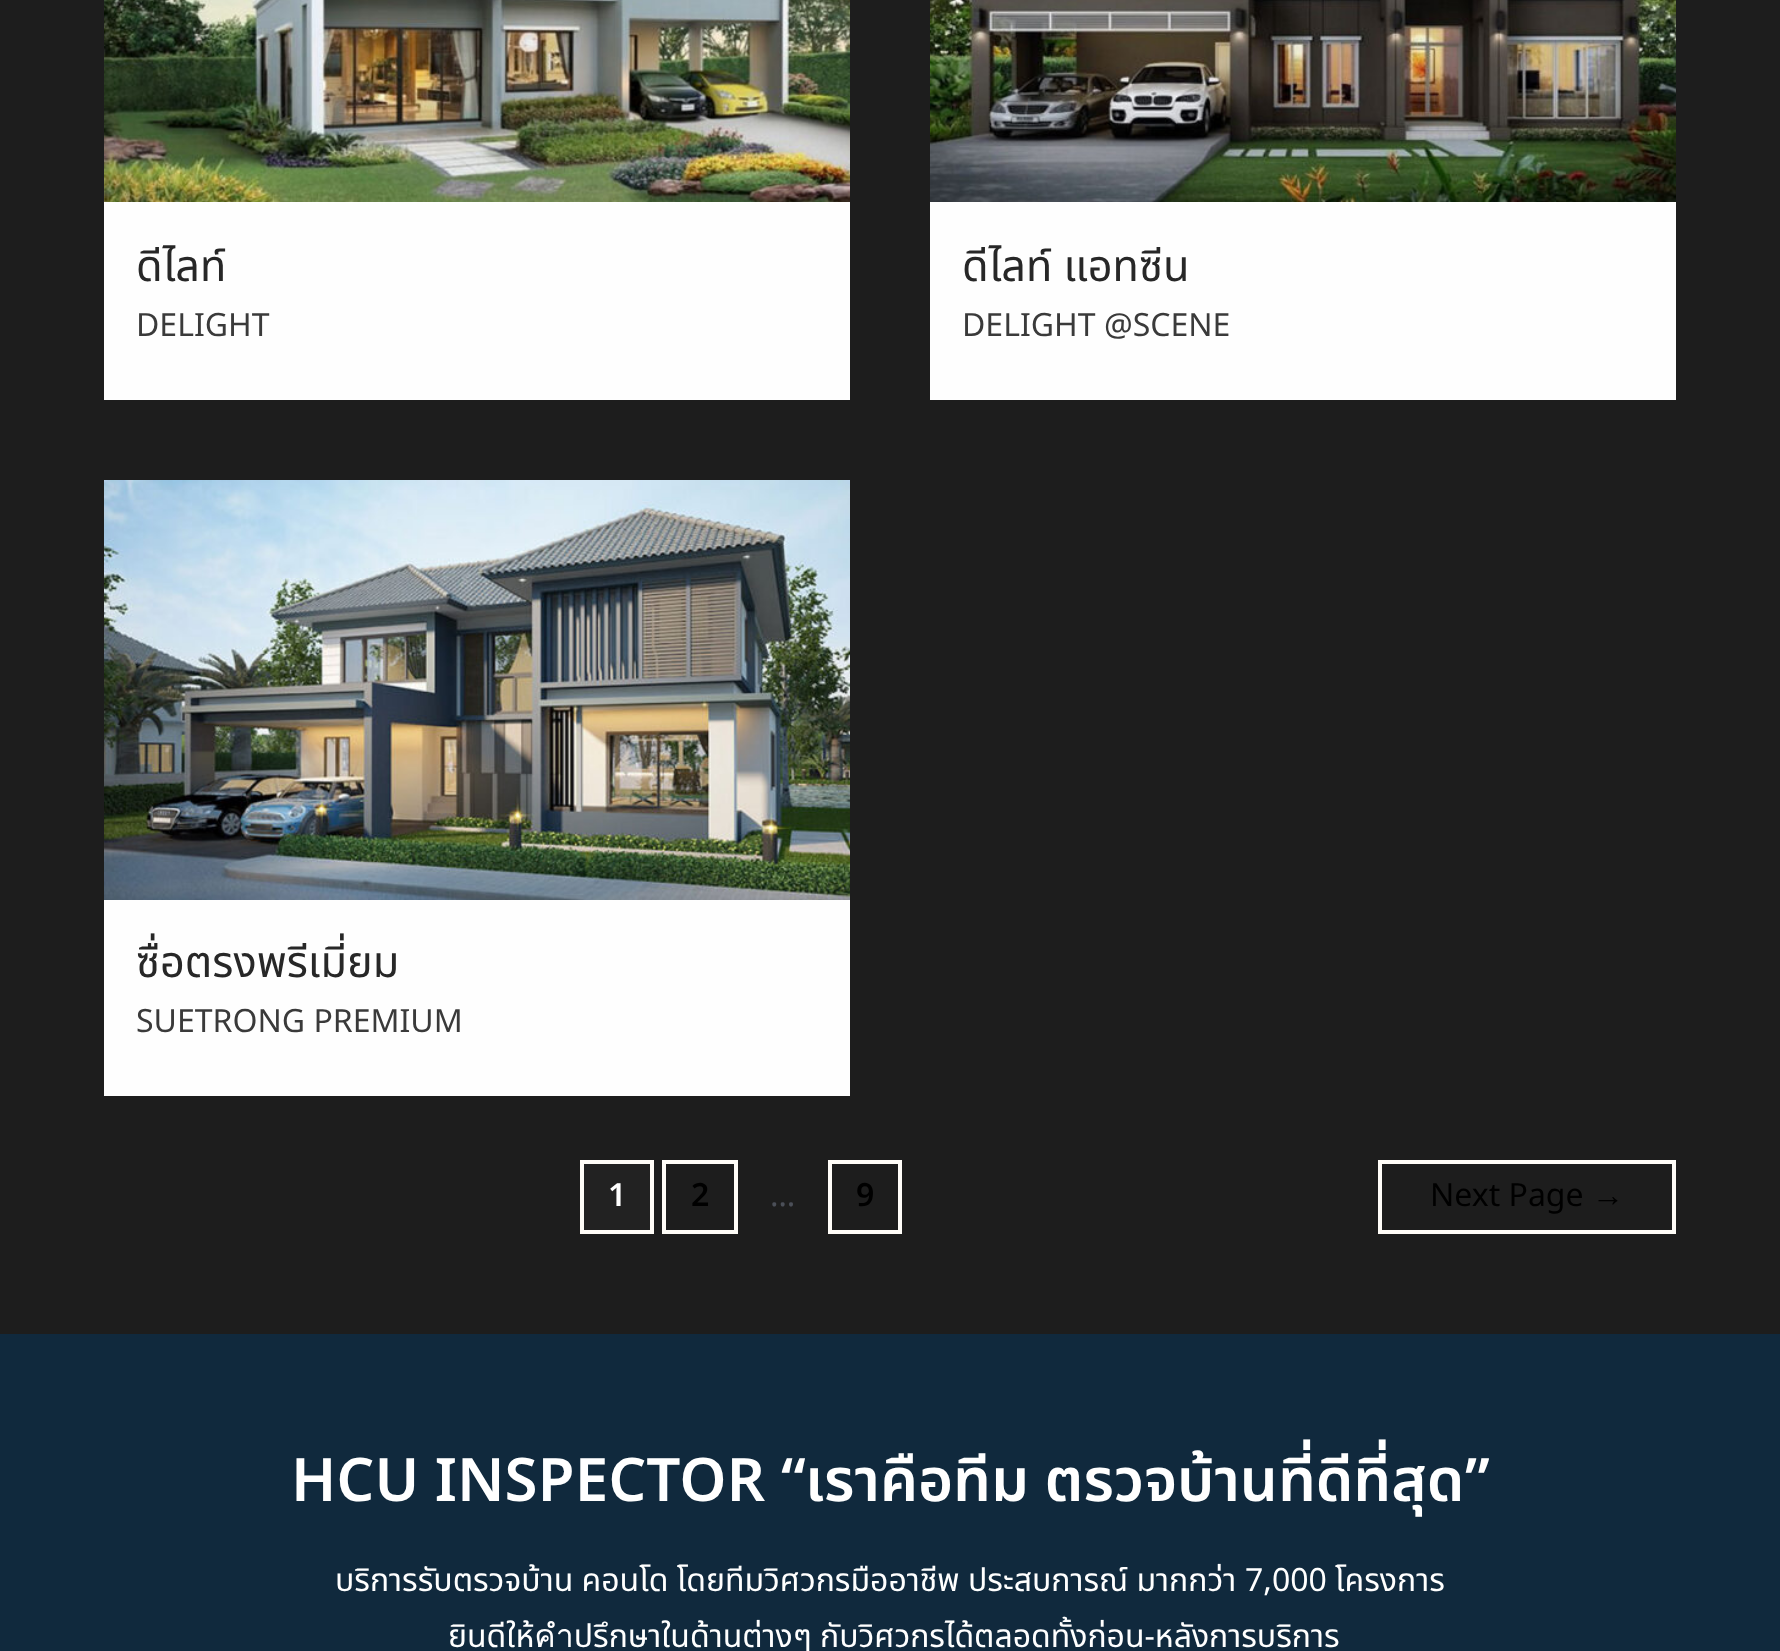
(async () => {
    const canvas = document.querySelector("canvas");
    canvas.width = 1780;
    canvas.height = 1651;
    const context = canvas.getContext("2d");
    context.miterLimit = 4;
    context.fontKerning = "normal";
    function write(s, x, y, font, color) {
        context.font = font;
        context.fillStyle = color;
        context.fillText(s, x, y);
    }
    function block(x, y, w, h, color) {
        context.fillStyle = color;
        context.fillRect(x, y, w, h);
    }
    async function photo(src, x, y, w, h) {
        const img = new Image();
        img.src = src;
        await img.decode();
        context.drawImage(img, x, y, w, h);
    }

    block(0, 0, 1780, 1651, "rgb(29, 29, 29)");
    block(104, 202, 746, 198, "rgb(254, 254, 254)");
    await photo("media/1.png", 104, 0, 746, 202);
    write("ดีไลท์", 136, 281, "43.25px Noto Sans Thai", "rgb(39, 39, 39)");
    write("DELIGHT", 136, 336, "32px Noto Sans", "rgb(58, 58, 58)");
    block(930, 202, 746, 198, "rgb(254, 254, 254)");
    await photo("media/2.png", 930, 0, 746, 202);
    write("ดีไลท์ แอทซีน", 962, 281, "43.25px Noto Sans Thai", "rgb(39, 39, 39)");
    write("DELIGHT @SCENE", 962, 336, "32px Noto Sans", "rgb(58, 58, 58)");
    block(104, 900, 746, 196, "rgb(254, 254, 254)");
    await photo("media/3.png", 104, 480, 746, 420);
    write("ซื่อตรงพรีเมี่ยม", 136, 977, "43.25px Noto Sans Thai", "rgb(39, 39, 39)");
    write("SUETRONG PREMIUM", 136, 1032, "32px Noto Sans", "rgb(58, 58, 58)");
    context.fillStyle = "rgb(34, 34, 34)";
    context.beginPath();
    context.rect(582, 1162, 70, 70);
    context.fill();
    context.strokeStyle = "rgb(255, 253, 248)";
    context.lineWidth = 4;
    context.stroke();
    write("1", 608, 1206, "600 32px Noto Sans", "rgb(255, 255, 255)");
    context.strokeRect(664, 1162, 72, 70);
    write("2", 691, 1206, "600 32px 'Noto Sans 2'", "rgb(0, 0, 0)");
    write("…", 770, 1206, "32px Noto Sans", "rgb(75, 79, 88)");
    context.strokeRect(830, 1162, 70, 70);
    write("9", 856, 1206, "600 32px 'Noto Sans 2'", "rgb(0, 0, 0)");
    context.strokeRect(1380, 1162, 294, 70);
    write("Next Page", 1430, 1206, "32px Noto Sans", "rgb(0, 0, 0)");
    write("→", 1592, 1206, "32px Liberation Serif", "rgb(0, 0, 0)");
    block(0, 1334, 1780, 317, "rgb(16, 41, 61)");
    write("HCU INSPECTOR “", 291, 1501, "600 60px Noto Sans", "rgb(255, 255, 255)");
    write("เราคือทีม ตรวจบ้านที่ดีที่สุด", 805, 1501, "600 60px Noto Sans Thai", "rgb(255, 255, 255)");
    write("”", 1465, 1501, "600 60px Noto Sans", "rgb(255, 255, 255)");
    write("บริการรับตรวจบ้าน คอนโด โดยทีมวิศวกรมืออาชีพ ประสบการณ์ มากกว่า", 335, 1591, "32px Noto Sans Thai", "rgb(255, 255, 255)");
    write("7,000", 1245, 1591, "32px Noto Sans", "rgb(255, 255, 255)");
    write("โครงการ", 1335, 1591, "32px Noto Sans Thai", "rgb(255, 255, 255)");
    write("ยินดีให้คำปรึกษาในด้านต่างๆ กับวิศวกรได้ตลอดทั้งก่อน-หลังการบริการ", 448, 1647, "32px Noto Sans Thai", "rgb(255, 255, 255)");
})();
